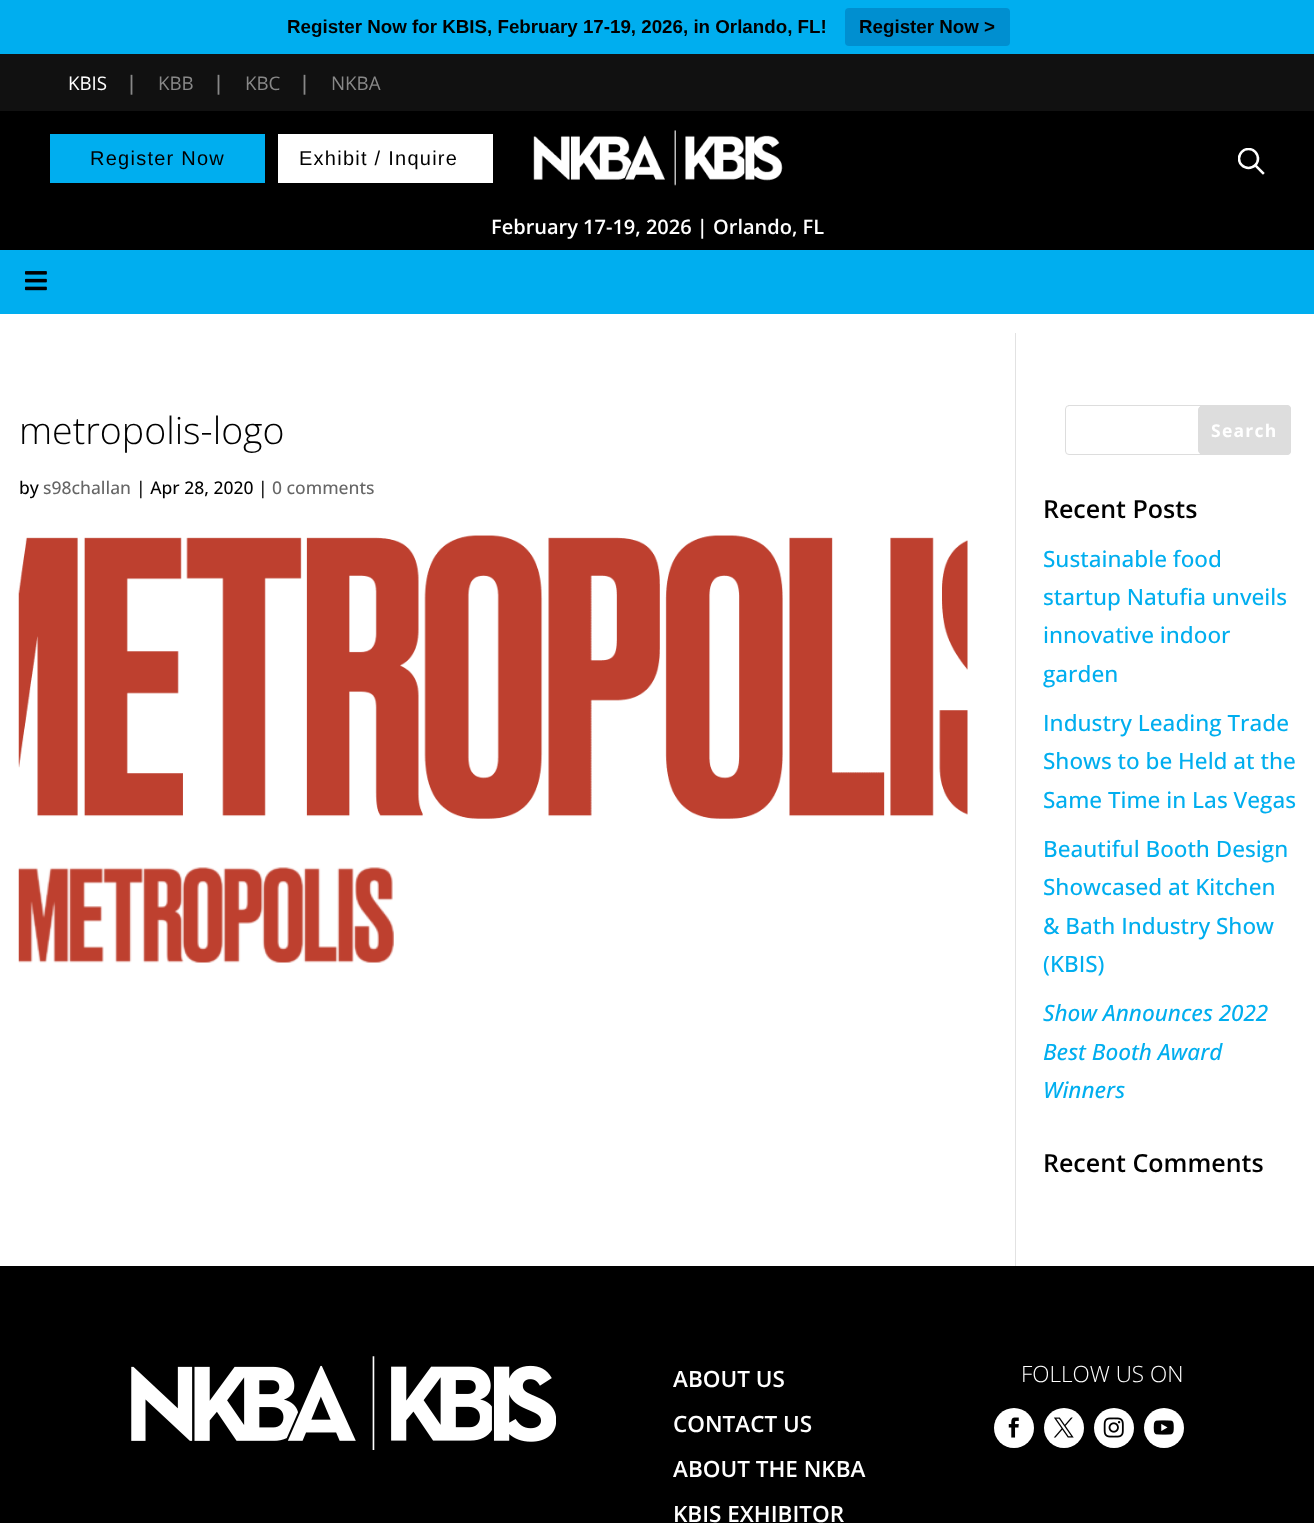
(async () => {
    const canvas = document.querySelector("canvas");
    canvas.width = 1314;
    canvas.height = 1523;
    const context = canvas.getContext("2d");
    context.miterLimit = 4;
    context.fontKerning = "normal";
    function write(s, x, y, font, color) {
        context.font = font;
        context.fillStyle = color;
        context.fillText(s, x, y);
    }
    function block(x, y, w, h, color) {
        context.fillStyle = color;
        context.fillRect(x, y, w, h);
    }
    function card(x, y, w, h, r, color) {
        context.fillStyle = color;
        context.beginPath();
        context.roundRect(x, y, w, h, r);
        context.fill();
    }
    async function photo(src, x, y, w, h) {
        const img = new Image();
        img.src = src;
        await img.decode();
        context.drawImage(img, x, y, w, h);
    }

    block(0, 0, 1314, 1523, "rgb(255, 255, 255)");
    block(0, 0, 1314, 54, "rgb(0, 174, 239)");
    write("Register Now for KBIS, February 17-19, 2026, in Orlando, FL!", 287, 33, "bold 18.75px Liberation Sans", "rgb(0, 0, 0)");
    card(845, 8, 165, 38, 4, "rgb(0, 143, 208)");
    write("Register Now >", 859, 33, "bold 18.75px Liberation Sans", "rgb(0, 0, 0)");
    block(0, 54, 1314, 57, "rgb(17, 17, 17)");
    write("KBIS", 68, 90, "18.75px Open Sans", "rgb(255, 255, 255)");
    write("|", 126, 90, "600 20px Open Sans", "rgb(136, 136, 136)");
    write("KBB", 158, 90, "18.75px Open Sans", "rgb(136, 136, 136)");
    write("|", 213, 90, "600 20px Open Sans", "rgb(136, 136, 136)");
    write("KBC", 245, 90, "18.75px Open Sans", "rgb(136, 136, 136)");
    write("|", 299, 90, "600 20px Open Sans", "rgb(136, 136, 136)");
    write("NKBA", 331, 90, "18.75px Open Sans", "rgb(136, 136, 136)");
    block(0, 111, 1314, 139, "rgb(0, 0, 0)");
    block(50, 134, 215, 49, "rgb(0, 174, 239)");
    context.letterSpacing = "1.25px";
    write("Register Now", 90, 165, "20px Liberation Sans", "rgb(0, 0, 0)");
    block(278, 134, 215, 49, "rgb(255, 255, 255)");
    write("Exhibit / Inquire", 299, 165, "20px Liberation Sans", "rgb(0, 0, 0)");
    await photo("media/1.png", 533, 130, 250, 56);
    context.beginPath();
    context.moveTo(1263, 173);
    context.lineTo(1255.5, 165.5);
    context.strokeStyle = "rgb(255, 255, 255)";
    context.lineWidth = 2.5;
    context.lineCap = "square";
    context.stroke();
    context.save();
    context.beginPath();
    context.rect(1238, 148, 27, 27);
    context.clip();
    context.beginPath();
    context.arc(1248.5, 158.5, 9.5, 0, Math.PI * 2);
    context.stroke();
    context.restore();
    context.letterSpacing = "0px";
    write("February 17-19, 2026 | Orlando, FL", 491, 234, "600 20px Open Sans", "rgb(255, 255, 255)");
    block(0, 250, 1314, 64, "rgb(0, 174, 239)");
    await photo("media/2.png", 25, 271, 22, 20);
    block(1015, 333, 1, 933, "rgb(226, 226, 226)");
    write("metropolis-logo", 19, 444, "300 37.5px Open Sans", "rgb(0, 0, 0)");
    write("by", 19, 494, "500 17.5px Open Sans", "rgb(0, 0, 0)");
    write("s98challan", 43, 494, "500 17.5px Open Sans", "rgb(102, 102, 102)");
    write("| Apr 28, 2020 |", 136, 494, "500 17.5px Open Sans", "rgb(0, 0, 0)");
    write("0 comments", 272, 494, "500 17.5px Open Sans", "rgb(102, 102, 102)");
    await photo("media/3.png", 18, 535, 950, 284);
    await photo("media/4.png", 18, 867, 376, 96);
    context.beginPath();
    context.roundRect(1065.5, 405.5, 225, 49, 3.5);
    context.strokeStyle = "rgb(221, 221, 221)";
    context.lineWidth = 1;
    context.stroke();
    context.fillStyle = "rgb(221, 221, 221)";
    context.beginPath();
    context.roundRect(1198.5, 405.5, 92, 49, [4.5, 3.5, 3.5, 4.5]);
    context.fill();
    context.stroke();
    context.letterSpacing = "1.25px";
    write("Search", 1211, 437, "bold 17.5px Open Sans", "rgb(255, 255, 255)");
    context.letterSpacing = "0px";
    write("Recent Posts", 1043, 518, "600 25px Open Sans", "rgb(0, 0, 0)");
    write("Sustainable food", 1043, 567, "500 22.5px Open Sans", "rgb(0, 174, 239)");
    write("startup Natufia unveils", 1043, 605, "500 22.5px Open Sans", "rgb(0, 174, 239)");
    write("innovative indoor", 1043, 643, "500 22.5px Open Sans", "rgb(0, 174, 239)");
    write("garden", 1043, 682, "500 22.5px Open Sans", "rgb(0, 174, 239)");
    write("Industry Leading Trade", 1043, 731, "500 22.5px Open Sans", "rgb(0, 174, 239)");
    write("Shows to be Held at the", 1043, 769, "500 22.5px Open Sans", "rgb(0, 174, 239)");
    write("Same Time in Las Vegas", 1043, 808, "500 22.5px Open Sans", "rgb(0, 174, 239)");
    write("Beautiful Booth Design", 1043, 857, "500 22.5px Open Sans", "rgb(0, 174, 239)");
    write("Showcased at Kitchen", 1043, 895, "500 22.5px Open Sans", "rgb(0, 174, 239)");
    write("& Bath Industry Show", 1043, 934, "500 22.5px Open Sans", "rgb(0, 174, 239)");
    write("(KBIS)", 1043, 972, "500 22.5px Open Sans", "rgb(0, 174, 239)");
    write("Show Announces 2022", 1043, 1021, "italic 500 22.5px Open Sans", "rgb(0, 174, 239)");
    write("Best Booth Award", 1043, 1060, "italic 500 22.5px Open Sans", "rgb(0, 174, 239)");
    write("Winners", 1043, 1098, "italic 500 22.5px Open Sans", "rgb(0, 174, 239)");
    write("Recent Comments", 1043, 1172, "600 25px Open Sans", "rgb(0, 0, 0)");
    block(0, 1266, 1314, 257, "rgb(0, 0, 0)");
    await photo("media/5.png", 131, 1356, 425, 94);
    write("ABOUT US", 673, 1387, "600 22.5px Open Sans", "rgb(255, 255, 255)");
    write("CONTACT US", 673, 1432, "600 22.5px Open Sans", "rgb(255, 255, 255)");
    write("ABOUT THE NKBA", 673, 1477, "600 22.5px Open Sans", "rgb(255, 255, 255)");
    write("KBIS EXHIBITOR", 673, 1522, "600 22.5px Open Sans", "rgb(255, 255, 255)");
    write("FOLLOW US ON", 1021, 1382, "300 22.5px Open Sans", "rgb(255, 255, 255)");
    context.beginPath();
    context.arc(1014, 1428, 20, 0, Math.PI * 2);
    context.fill();
    await photo("media/6.png", 1008, 1417, 11, 21);
    context.beginPath();
    context.arc(1064, 1428, 20, 0, Math.PI * 2);
    context.fill();
    await photo("media/7.png", 1053, 1417, 21, 21);
    context.beginPath();
    context.arc(1114, 1428, 20, 0, Math.PI * 2);
    context.fill();
    await photo("media/8.png", 1103, 1417, 21, 21);
    context.beginPath();
    context.arc(1164, 1428, 20, 0, Math.PI * 2);
    context.fill();
    await photo("media/9.png", 1153, 1420, 21, 15);
})();
